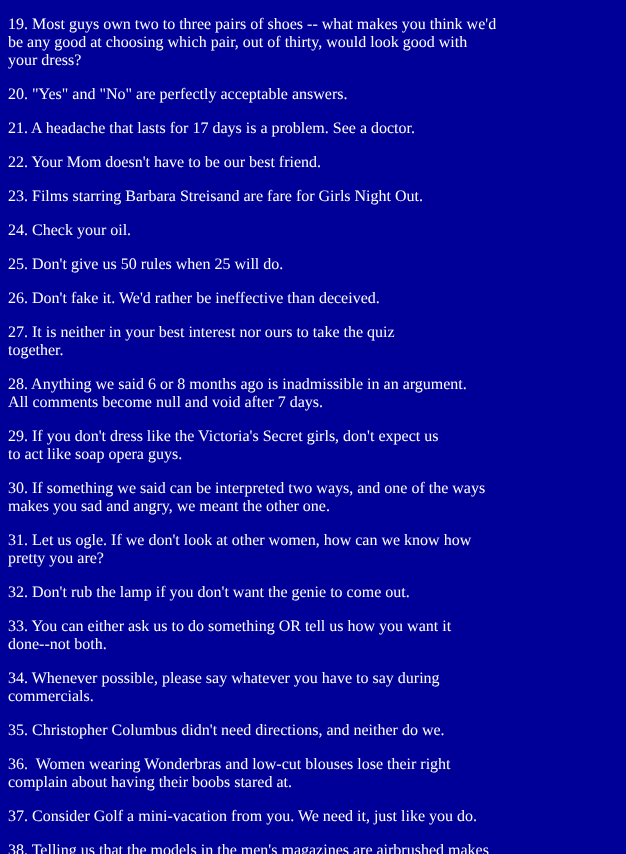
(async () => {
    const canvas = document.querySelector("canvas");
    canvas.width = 626;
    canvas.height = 854;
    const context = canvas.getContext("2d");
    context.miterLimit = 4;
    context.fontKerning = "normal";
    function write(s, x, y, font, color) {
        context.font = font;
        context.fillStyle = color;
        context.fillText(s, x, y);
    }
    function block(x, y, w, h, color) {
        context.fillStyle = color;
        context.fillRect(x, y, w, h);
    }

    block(0, 0, 626, 854, "rgb(0, 0, 153)");
    write("19. Most guys own two to three pairs of shoes -- what makes you think we'd", 8, 29, "16px Liberation Serif", "rgb(255, 255, 255)");
    write("be any good at choosing which pair, out of thirty, would look good with", 8, 47, "16px Liberation Serif", "rgb(255, 255, 255)");
    write("your dress?", 8, 65, "16px Liberation Serif", "rgb(255, 255, 255)");
    write("20. \"Yes\" and \"No\" are perfectly acceptable answers.", 8, 99, "16px Liberation Serif", "rgb(255, 255, 255)");
    write("21. A headache that lasts for 17 days is a problem. See a doctor.", 8, 133, "16px Liberation Serif", "rgb(255, 255, 255)");
    write("22. Your Mom doesn't have to be our best friend.", 8, 167, "16px Liberation Serif", "rgb(255, 255, 255)");
    write("23. Films starring Barbara Streisand are fare for Girls Night Out.", 8, 201, "16px Liberation Serif", "rgb(255, 255, 255)");
    write("24. Check your oil.", 8, 235, "16px Liberation Serif", "rgb(255, 255, 255)");
    write("25. Don't give us 50 rules when 25 will do.", 8, 269, "16px Liberation Serif", "rgb(255, 255, 255)");
    write("26. Don't fake it. We'd rather be ineffective than deceived.", 8, 303, "16px Liberation Serif", "rgb(255, 255, 255)");
    write("27. It is neither in your best interest nor ours to take the quiz", 8, 337, "16px Liberation Serif", "rgb(255, 255, 255)");
    write("together.", 8, 355, "16px Liberation Serif", "rgb(255, 255, 255)");
    write("28. Anything we said 6 or 8 months ago is inadmissible in an argument.", 8, 389, "16px Liberation Serif", "rgb(255, 255, 255)");
    write("All comments become null and void after 7 days.", 8, 407, "16px Liberation Serif", "rgb(255, 255, 255)");
    write("29. If you don't dress like the Victoria's Secret girls, don't expect us", 8, 441, "16px Liberation Serif", "rgb(255, 255, 255)");
    write("to act like soap opera guys.", 8, 459, "16px Liberation Serif", "rgb(255, 255, 255)");
    write("30. If something we said can be interpreted two ways, and one of the ways", 8, 493, "16px Liberation Serif", "rgb(255, 255, 255)");
    write("makes you sad and angry, we meant the other one.", 8, 511, "16px Liberation Serif", "rgb(255, 255, 255)");
    write("31. Let us ogle. If we don't look at other women, how can we know how", 8, 545, "16px Liberation Serif", "rgb(255, 255, 255)");
    write("pretty you are?", 8, 563, "16px Liberation Serif", "rgb(255, 255, 255)");
    write("32. Don't rub the lamp if you don't want the genie to come out.", 8, 597, "16px Liberation Serif", "rgb(255, 255, 255)");
    write("33. You can either ask us to do something OR tell us how you want it", 8, 631, "16px Liberation Serif", "rgb(255, 255, 255)");
    write("done--not both.", 8, 649, "16px Liberation Serif", "rgb(255, 255, 255)");
    write("34. Whenever possible, please say whatever you have to say during", 8, 683, "16px Liberation Serif", "rgb(255, 255, 255)");
    write("commercials.", 8, 701, "16px Liberation Serif", "rgb(255, 255, 255)");
    write("35. Christopher Columbus didn't need directions, and neither do we.", 8, 735, "16px Liberation Serif", "rgb(255, 255, 255)");
    write("36.  Women wearing Wonderbras and low-cut blouses lose their right", 8, 769, "16px Liberation Serif", "rgb(255, 255, 255)");
    write("complain about having their boobs stared at.", 8, 787, "16px Liberation Serif", "rgb(255, 255, 255)");
    write("37. Consider Golf a mini-vacation from you. We need it, just like you do.", 8, 821, "16px Liberation Serif", "rgb(255, 255, 255)");
    write("38. Telling us that the models in the men's magazines are airbrushed makes", 8, 855, "16px Liberation Serif", "rgb(255, 255, 255)");
})();
